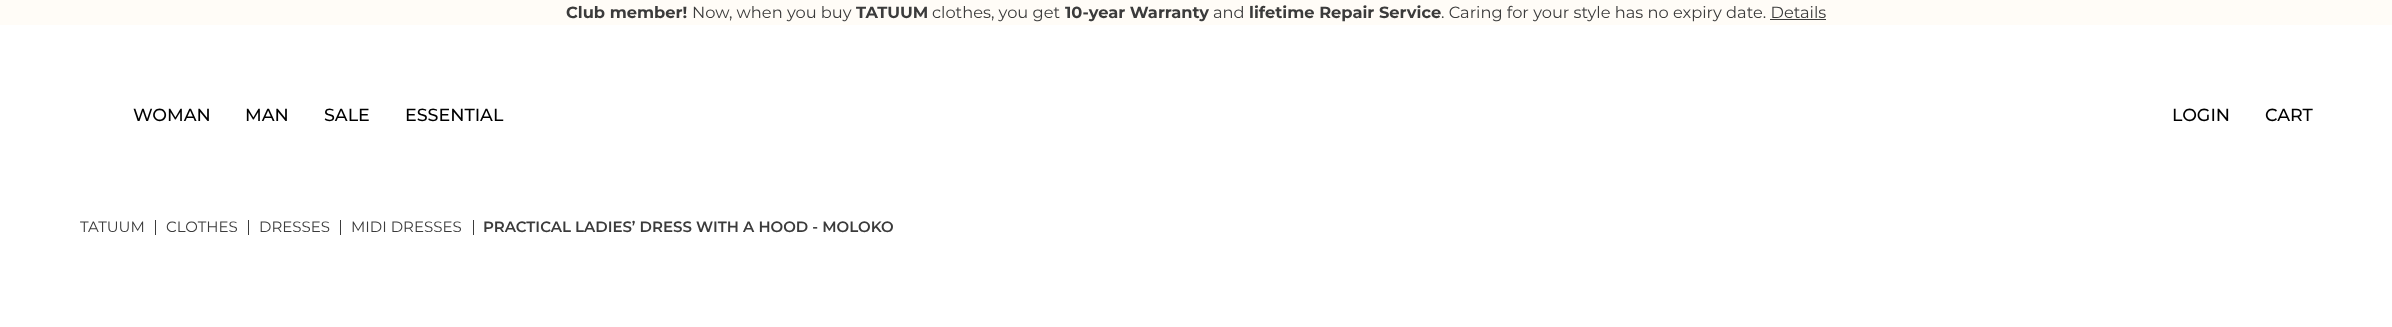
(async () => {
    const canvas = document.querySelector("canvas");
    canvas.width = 2392;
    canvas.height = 327;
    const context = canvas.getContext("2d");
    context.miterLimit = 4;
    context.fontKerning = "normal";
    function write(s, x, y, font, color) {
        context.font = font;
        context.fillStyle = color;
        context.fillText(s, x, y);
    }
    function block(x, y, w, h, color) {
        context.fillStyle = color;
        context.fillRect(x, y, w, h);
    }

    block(0, 0, 2392, 327, "rgb(255, 255, 255)");
    block(0, 0, 2392, 25, "rgb(255, 252, 247)");
    write("Club member!", 566, 18, "100 16.25px 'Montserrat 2'", "rgb(59, 59, 59)");
    write("Now, when you buy", 692, 18, "100 16.25px Montserrat", "rgb(59, 59, 59)");
    write("TATUUM", 856, 18, "100 16.25px 'Montserrat 2'", "rgb(59, 59, 59)");
    write("clothes, you get", 932, 18, "100 16.25px Montserrat", "rgb(59, 59, 59)");
    write("10-year Warranty", 1065, 18, "100 16.25px 'Montserrat 2'", "rgb(59, 59, 59)");
    write("and", 1213, 18, "100 16.25px Montserrat", "rgb(59, 59, 59)");
    write("lifetime Repair Service", 1249, 18, "100 16.25px 'Montserrat 2'", "rgb(59, 59, 59)");
    write(". Caring for your style has no expiry date. Details", 1441, 18, "100 16.25px Montserrat", "rgb(59, 59, 59)");
    block(1770, 19, 56, 1, "rgb(59, 59, 59)");
    write("WOMAN", 133, 121, "500 17.5px Montserrat", "rgb(0, 0, 0)");
    write("MAN", 245, 121, "500 17.5px Montserrat", "rgb(0, 0, 0)");
    write("SALE", 324, 121, "500 17.5px Montserrat", "rgb(0, 0, 0)");
    write("ESSENTIAL", 405, 121, "500 17.5px Montserrat", "rgb(0, 0, 0)");
    write("LOGIN", 2172, 121, "500 17.5px Montserrat", "rgb(0, 0, 0)");
    write("CART", 2265, 121, "500 17.5px Montserrat", "rgb(0, 0, 0)");
    write("TATUUM", 80, 232, "100 15px Montserrat", "rgb(59, 59, 59)");
    block(155, 220, 1, 15, "rgb(59, 59, 59)");
    write("CLOTHES", 166, 232, "100 15px Montserrat", "rgb(59, 59, 59)");
    block(248, 220, 1, 15, "rgb(59, 59, 59)");
    write("DRESSES", 259, 232, "100 15px Montserrat", "rgb(59, 59, 59)");
    block(340, 220, 1, 15, "rgb(59, 59, 59)");
    write("MIDI DRESSES", 351, 232, "100 15px Montserrat", "rgb(59, 59, 59)");
    block(473, 220, 1, 15, "rgb(59, 59, 59)");
    write("PRACTICAL LADIES’ DRESS WITH A HOOD - MOLOKO", 483, 232, "600 15px Montserrat", "rgb(59, 59, 59)");
})();
